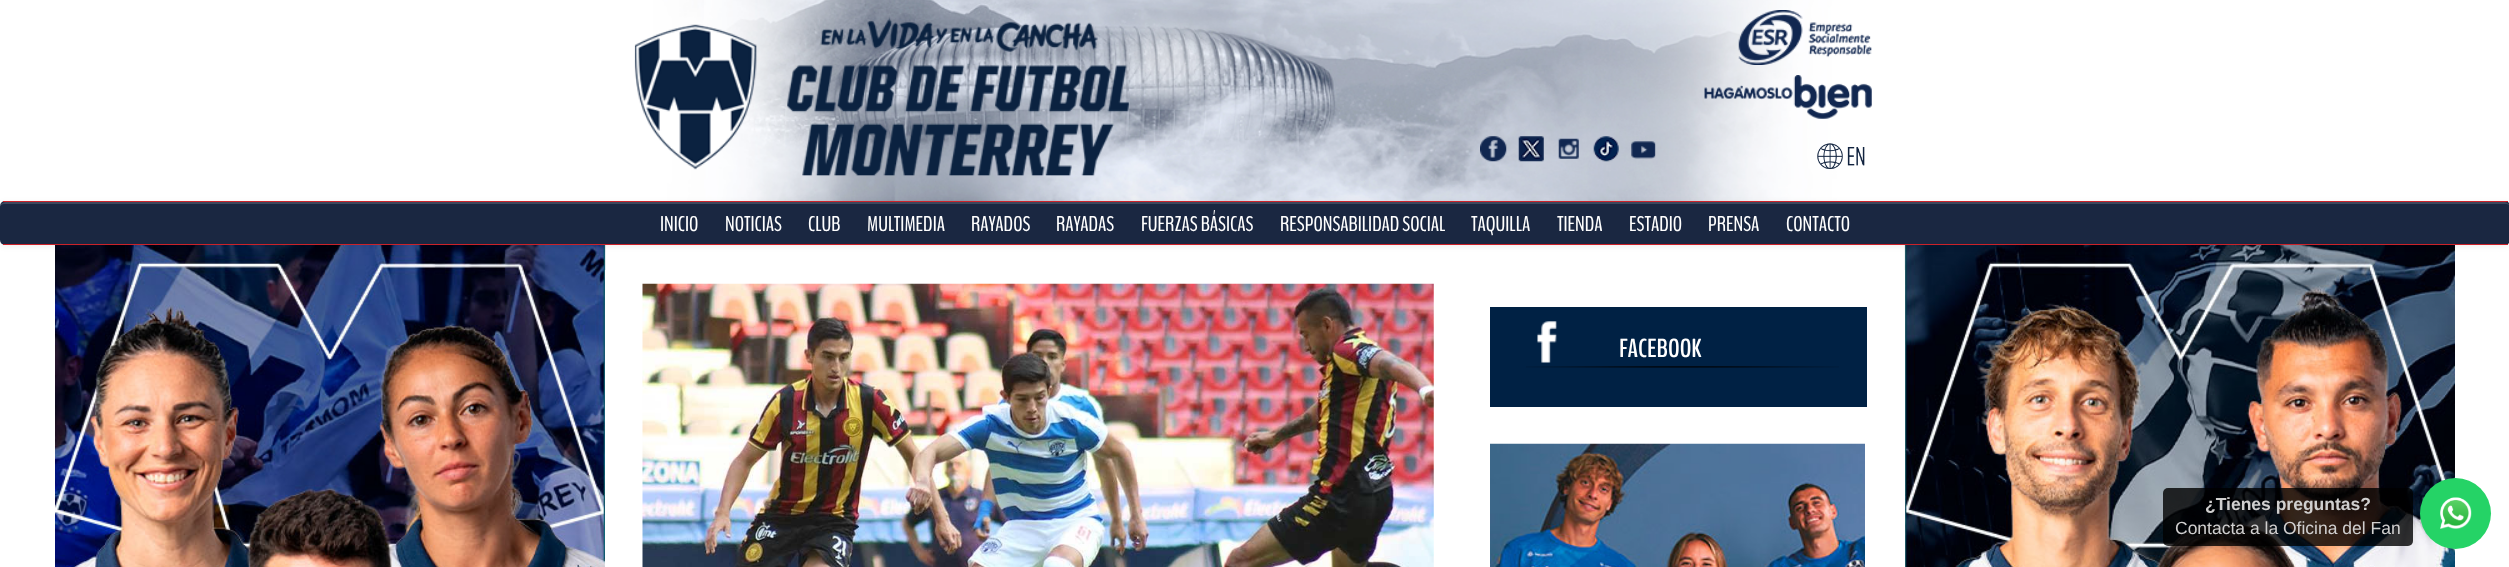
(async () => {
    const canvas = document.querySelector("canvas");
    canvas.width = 2509;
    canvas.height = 567;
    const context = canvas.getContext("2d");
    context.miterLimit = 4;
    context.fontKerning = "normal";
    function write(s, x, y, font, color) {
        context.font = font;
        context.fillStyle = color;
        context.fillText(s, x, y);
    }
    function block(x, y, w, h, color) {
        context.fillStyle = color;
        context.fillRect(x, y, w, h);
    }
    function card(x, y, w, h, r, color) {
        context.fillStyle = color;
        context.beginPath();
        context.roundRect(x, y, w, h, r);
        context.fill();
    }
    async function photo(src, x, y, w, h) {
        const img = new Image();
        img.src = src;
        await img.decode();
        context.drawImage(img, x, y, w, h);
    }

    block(0, 0, 2509, 567, "rgb(255, 255, 255)");
    await photo("media/1.png", 55, 245, 2400, 322);
    await photo("media/2.png", 317, 0, 1876, 201);
    await photo("media/3.png", 634, 17, 495, 159);
    await photo("media/4.png", 1480, 136, 27, 26);
    await photo("media/5.png", 1518, 136, 26, 26);
    await photo("media/6.png", 1558, 138, 21, 21);
    await photo("media/7.png", 1593, 136, 26, 26);
    await photo("media/8.png", 1631, 141, 25, 18);
    await photo("media/9.png", 1738, 10, 134, 55);
    await photo("media/10.png", 1704, 75, 168, 44);
    await photo("media/11.png", 1817, 143, 48, 26);
    context.fillStyle = "rgba(0, 0, 0, 0.07)";
    context.filter = "blur(3px)";
    context.beginPath();
    context.roundRect(0, 203, 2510, 43, 5);
    context.fill();
    context.filter = "none";
    card(0, 201, 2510, 44, 5, "rgb(26, 39, 65)");
    context.fillStyle = "rgba(255, 255, 255, 0.15)";
    context.beginPath();
    context.moveTo(5, 204);
    context.lineTo(2505, 204);
    context.bezierCurveTo(2508, 204, 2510, 205, 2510, 208);
    context.bezierCurveTo(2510, 205, 2509, 203, 2505, 202);
    context.lineTo(5, 202);
    context.bezierCurveTo(3, 203, 1, 203, 0, 205);
    context.lineTo(0, 208);
    context.bezierCurveTo(0, 205, 2, 204, 5, 204);
    context.closePath();
    context.fill();
    block(3, 201, 2505, 1, "rgb(204, 34, 41)");
    block(3, 244, 2505, 1, "rgb(204, 34, 41)");
    write("INICIO", 660, 231, "21.25px BenchNine", "rgb(255, 255, 255)");
    write("NOTICIAS", 725, 231, "21.25px BenchNine", "rgb(255, 255, 255)");
    write("CLUB", 808, 231, "21.25px BenchNine", "rgb(255, 255, 255)");
    write("MULTIMEDIA", 867, 231, "21.25px BenchNine", "rgb(255, 255, 255)");
    write("RAYADOS", 971, 231, "21.25px BenchNine", "rgb(255, 255, 255)");
    write("RAYADAS", 1056, 231, "21.25px BenchNine", "rgb(255, 255, 255)");
    write("FUERZAS BÁSICAS", 1141, 231, "21.25px BenchNine", "rgb(255, 255, 255)");
    write("RESPONSABILIDAD SOCIAL", 1280, 231, "21.25px BenchNine", "rgb(255, 255, 255)");
    write("TAQUILLA", 1471, 231, "21.25px BenchNine", "rgb(255, 255, 255)");
    write("TIENDA", 1557, 231, "21.25px BenchNine", "rgb(255, 255, 255)");
    write("ESTADIO", 1629, 231, "21.25px BenchNine", "rgb(255, 255, 255)");
    write("PRENSA", 1708, 231, "21.25px BenchNine", "rgb(255, 255, 255)");
    write("CONTACTO", 1786, 231, "21.25px BenchNine", "rgb(255, 255, 255)");
    block(605, 270, 1300, 297, "rgb(255, 255, 255)");
    await photo("media/12.png", 642, 283, 792, 284);
    block(1490, 307, 377, 100, "rgb(0, 33, 68)");
    await photo("media/13.png", 1526, 366, 313, 2);
    await photo("media/14.png", 1537, 321, 20, 42);
    write("FACEBOOK", 1619, 357, "bold 26px BenchNine", "rgb(255, 255, 255)");
    await photo("media/15.png", 1490, 443, 375, 124);
    card(2163, 488, 250, 58, 5, "rgba(0, 0, 0, 0.8)");
    write("¿Tienes preguntas?", 2205, 510, "bold 17.5px Liberation Sans", "rgb(208, 207, 207)");
    write("Contacta a la Oficina del Fan", 2175, 534, "17.5px Liberation Sans", "rgb(208, 207, 207)");
    context.fillStyle = "rgb(37, 211, 102)";
    context.beginPath();
    context.arc(2455.5, 513.5, 35.5, 0, Math.PI * 2);
    context.fill();
    await photo("media/16.png", 2440, 497, 32, 32);
})();
